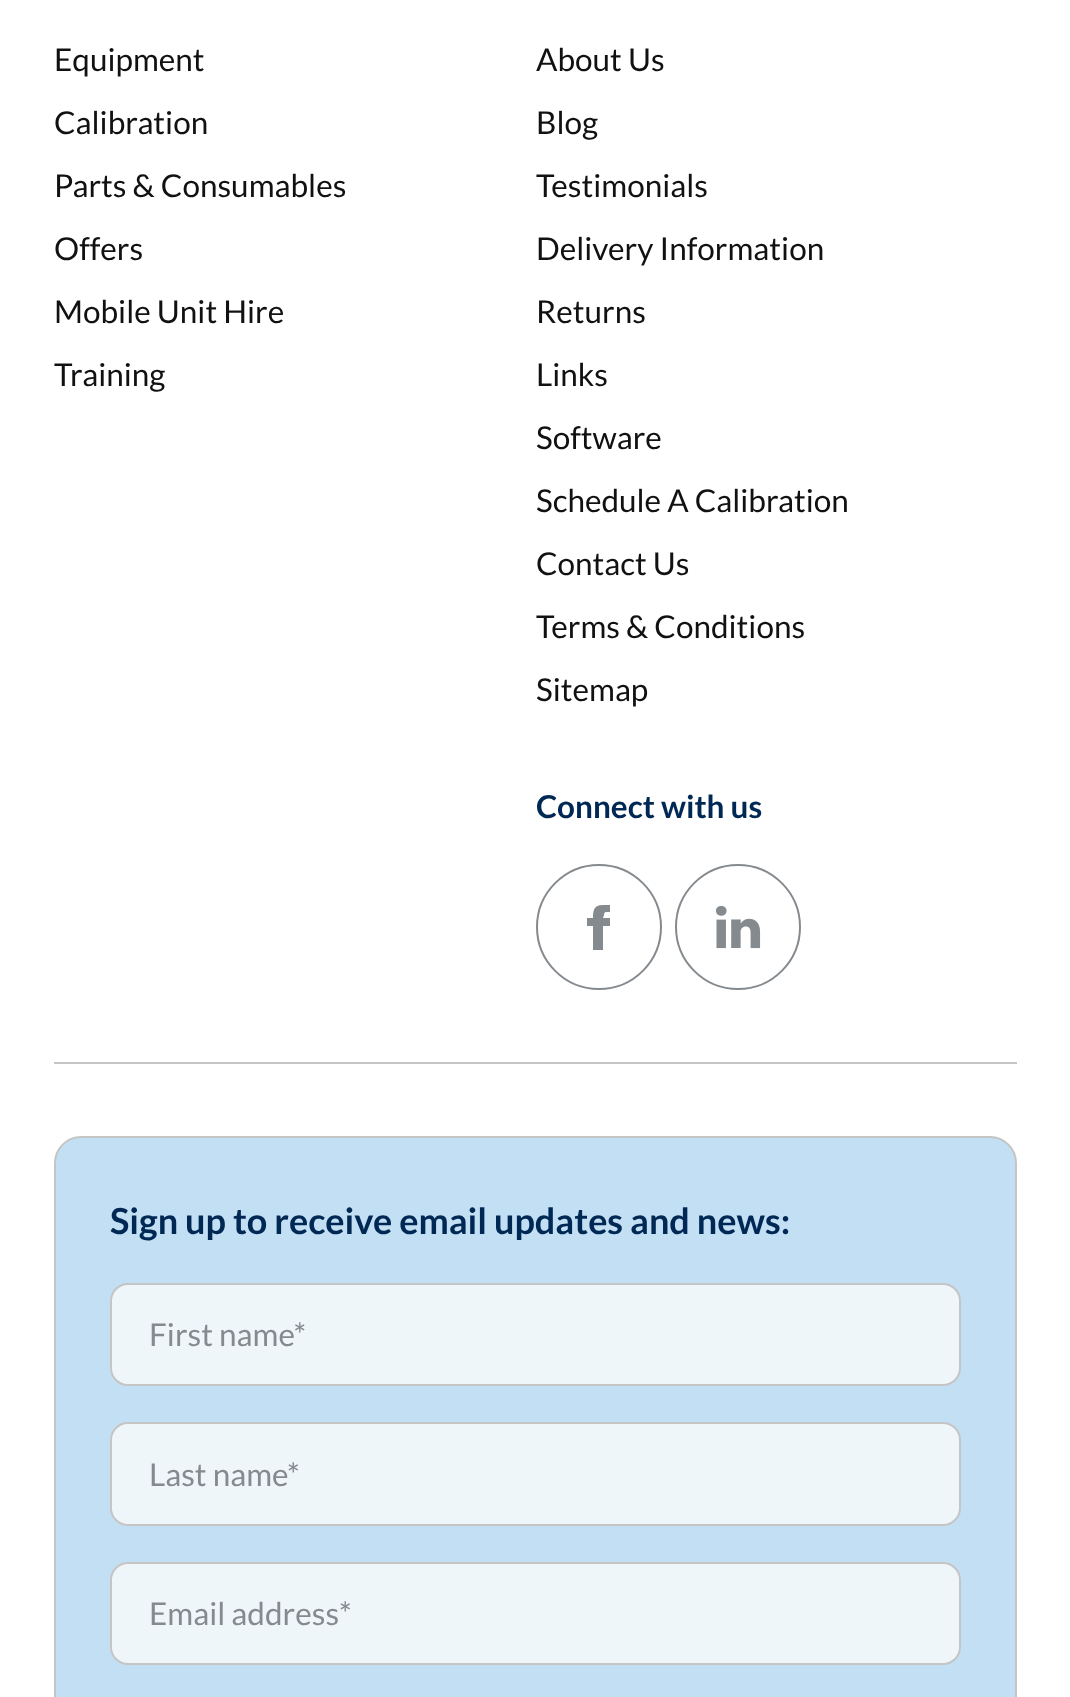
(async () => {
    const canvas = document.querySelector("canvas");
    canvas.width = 1070;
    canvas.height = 1697;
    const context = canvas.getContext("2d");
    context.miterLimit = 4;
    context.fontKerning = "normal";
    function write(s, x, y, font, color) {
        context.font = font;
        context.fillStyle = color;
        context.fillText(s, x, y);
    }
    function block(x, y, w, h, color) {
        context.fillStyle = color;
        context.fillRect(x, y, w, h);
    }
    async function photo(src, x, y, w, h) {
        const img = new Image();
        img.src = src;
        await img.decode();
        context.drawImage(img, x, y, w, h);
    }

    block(0, 0, 1070, 1697, "rgb(255, 255, 255)");
    write("Equipment", 54, 71, "31.5px Lato", "rgb(17, 17, 17)");
    write("Calibration", 54, 134, "31.5px Lato", "rgb(17, 17, 17)");
    write("Parts & Consumables", 54, 197, "31.5px Lato", "rgb(17, 17, 17)");
    write("Offers", 54, 260, "31.5px Lato", "rgb(17, 17, 17)");
    write("Mobile Unit Hire", 54, 323, "31.5px Lato", "rgb(17, 17, 17)");
    write("Training", 54, 386, "31.5px Lato", "rgb(17, 17, 17)");
    write("About Us", 536, 71, "31.5px Lato", "rgb(17, 17, 17)");
    write("Blog", 536, 134, "31.5px Lato", "rgb(17, 17, 17)");
    write("Testimonials", 536, 197, "31.5px Lato", "rgb(17, 17, 17)");
    write("Delivery Information", 536, 260, "31.5px Lato", "rgb(17, 17, 17)");
    write("Returns", 536, 323, "31.5px Lato", "rgb(17, 17, 17)");
    write("Links", 536, 386, "31.5px Lato", "rgb(17, 17, 17)");
    write("Software", 536, 449, "31.5px Lato", "rgb(17, 17, 17)");
    write("Schedule A Calibration", 536, 512, "31.5px Lato", "rgb(17, 17, 17)");
    write("Contact Us", 536, 575, "31.5px Lato", "rgb(17, 17, 17)");
    write("Terms & Conditions", 536, 638, "31.5px Lato", "rgb(17, 17, 17)");
    write("Sitemap", 536, 701, "31.5px Lato", "rgb(17, 17, 17)");
    write("Connect with us", 536, 818, "bold 31.5px Lato", "rgb(0, 40, 85)");
    context.beginPath();
    context.arc(599, 927, 62, 0, Math.PI * 2);
    context.strokeStyle = "rgb(133, 138, 143)";
    context.lineWidth = 2;
    context.stroke();
    context.fillStyle = "rgb(133, 138, 143)";
    context.beginPath();
    context.moveTo(587, 926);
    context.lineTo(587, 918);
    context.lineTo(593, 918);
    context.bezierCurveTo(593, 904, 598, 905, 610, 905);
    context.lineTo(610, 912);
    context.bezierCurveTo(607, 912, 604, 911, 604, 915);
    context.lineTo(603, 918);
    context.lineTo(610, 918);
    context.lineTo(610, 926);
    context.lineTo(603, 926);
    context.lineTo(603, 950);
    context.lineTo(593, 950);
    context.lineTo(593, 926);
    context.closePath();
    context.fill();
    context.beginPath();
    context.arc(738, 927, 62, 0, Math.PI * 2);
    context.stroke();
    await photo("media/1.png", 716, 905, 45, 44);
    block(54, 1062, 963, 2, "rgb(197, 197, 197)");
    context.fillStyle = "rgb(195, 223, 243)";
    context.beginPath();
    context.roundRect(55, 1137, 961, 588, 26);
    context.fill();
    context.strokeStyle = "rgb(197, 197, 197)";
    context.stroke();
    write("Sign up to receive email updates and news:", 110, 1234, "bold 36px Lato", "rgb(0, 40, 85)");
    context.fillStyle = "rgb(239, 246, 250)";
    context.beginPath();
    context.roundRect(111, 1284, 849, 101, 17);
    context.fill();
    context.stroke();
    write("First name*", 149, 1346, "31.5px Lato", "rgb(133, 138, 143)");
    context.fillStyle = "rgb(239, 246, 250)";
    context.beginPath();
    context.roundRect(111, 1423, 849, 102, 17);
    context.fill();
    context.stroke();
    write("Last name*", 149, 1486, "31.5px Lato", "rgb(133, 138, 143)");
    context.fillStyle = "rgb(239, 246, 250)";
    context.beginPath();
    context.roundRect(111, 1563, 849, 101, 17);
    context.fill();
    context.stroke();
    write("Email address*", 149, 1625, "31.5px Lato", "rgb(133, 138, 143)");
})();
